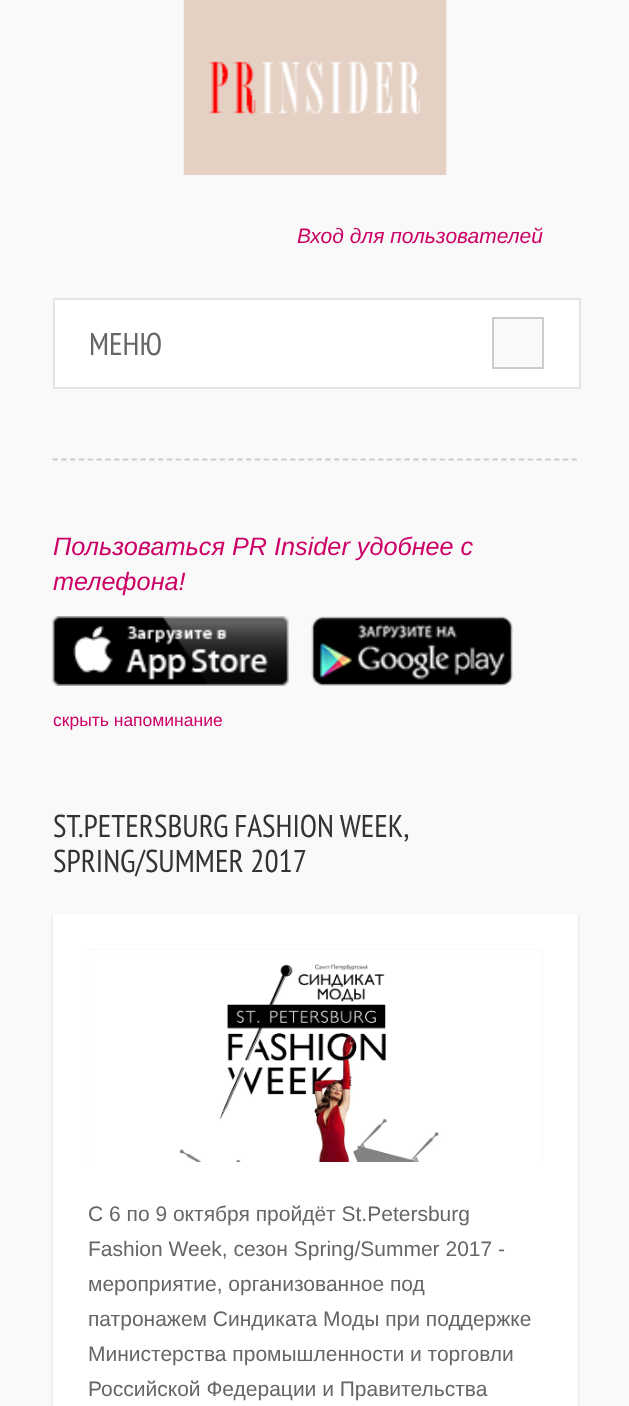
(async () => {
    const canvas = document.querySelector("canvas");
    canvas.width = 629;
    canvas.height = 1406;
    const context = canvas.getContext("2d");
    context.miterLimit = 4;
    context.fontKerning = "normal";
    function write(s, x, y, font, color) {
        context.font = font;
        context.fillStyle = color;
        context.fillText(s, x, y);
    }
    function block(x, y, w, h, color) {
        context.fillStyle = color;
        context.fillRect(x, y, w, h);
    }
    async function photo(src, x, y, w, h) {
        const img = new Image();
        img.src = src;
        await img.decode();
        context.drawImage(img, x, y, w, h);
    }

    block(0, 0, 629, 1406, "rgb(249, 249, 249)");
    await photo("media/1.png", 183, 0, 264, 175);
    write("Вход для пользователей", 297, 243, "italic 21px Liberation Sans", "rgb(204, 0, 102)");
    context.fillStyle = "rgb(255, 255, 255)";
    context.beginPath();
    context.rect(54, 299, 526, 89);
    context.fill();
    context.strokeStyle = "rgb(229, 229, 229)";
    context.lineWidth = 2;
    context.stroke();
    write("МЕНЮ", 89, 355, "31.5px PT Sans Narrow", "rgb(102, 102, 102)");
    context.fillStyle = "rgb(249, 249, 249)";
    context.beginPath();
    context.rect(493, 318, 50, 50);
    context.fill();
    context.strokeStyle = "rgb(204, 204, 204)";
    context.stroke();
    context.beginPath();
    context.moveTo(52.5, 459.5);
    context.lineTo(577.5, 459.5);
    context.lineWidth = 1.8;
    context.setLineDash([5.25, 3.55]);
    context.stroke();
    write("Пользоваться PR Insider удобнее с", 53, 555, "italic 25.25px Liberation Sans", "rgb(204, 0, 102)");
    write("телефона!", 53, 590, "italic 25.25px Liberation Sans", "rgb(204, 0, 102)");
    await photo("media/2.png", 52, 616, 237, 70);
    await photo("media/3.png", 311, 616, 202, 70);
    write("скрыть напоминание", 53, 726, "17.5px Liberation Sans", "rgb(204, 0, 102)");
    context.wordSpacing = "-1px";
    write("ST.PETERSBURG FASHION WEEK,", 53, 837, "31.5px PT Sans Narrow", "rgb(51, 51, 51)");
    context.wordSpacing = "0px";
    write("SPRING/SUMMER 2017", 53, 872, "31.5px PT Sans Narrow", "rgb(51, 51, 51)");
    context.fillStyle = "rgb(204, 204, 204)";
    context.filter = "blur(1px)";
    context.beginPath();
    context.rect(53, 915, 525, 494);
    context.fill();
    context.filter = "none";
    block(53, 914, 525, 492, "rgb(255, 255, 255)");
    await photo("media/4.png", 87, 948, 456, 214);
    write("С 6 по 9 октября пройдёт St.Petersburg", 88, 1221, "21px Liberation Sans", "rgb(102, 102, 102)");
    write("Fashion Week, сезон Spring/Summer 2017 -", 88, 1256, "21px Liberation Sans", "rgb(102, 102, 102)");
    write("мероприятие, организованное под", 88, 1291, "21px Liberation Sans", "rgb(102, 102, 102)");
    write("патронажем Синдиката Моды при поддержке", 88, 1326, "21px Liberation Sans", "rgb(102, 102, 102)");
    write("Министерства промышленности и торговли", 88, 1361, "21px Liberation Sans", "rgb(102, 102, 102)");
    write("Российской Федерации и Правительства", 88, 1396, "21px Liberation Sans", "rgb(102, 102, 102)");
})();
